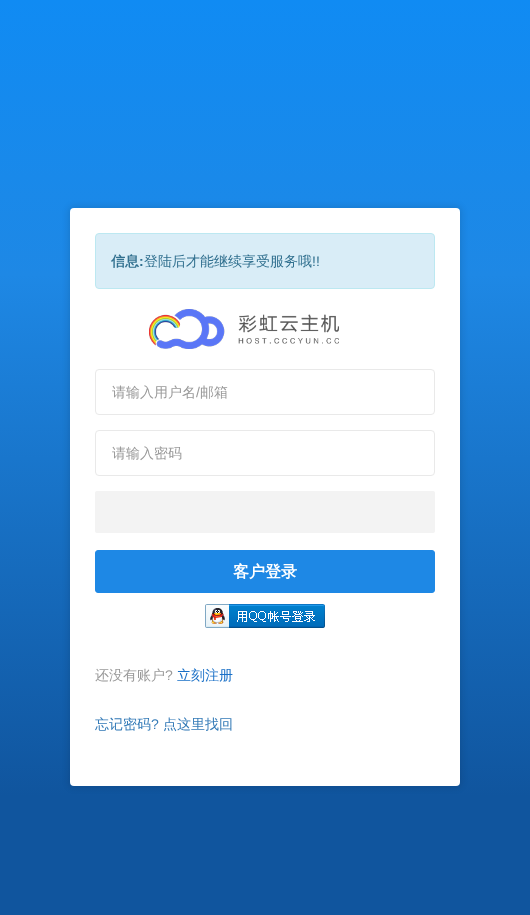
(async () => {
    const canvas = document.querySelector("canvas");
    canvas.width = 530;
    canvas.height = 915;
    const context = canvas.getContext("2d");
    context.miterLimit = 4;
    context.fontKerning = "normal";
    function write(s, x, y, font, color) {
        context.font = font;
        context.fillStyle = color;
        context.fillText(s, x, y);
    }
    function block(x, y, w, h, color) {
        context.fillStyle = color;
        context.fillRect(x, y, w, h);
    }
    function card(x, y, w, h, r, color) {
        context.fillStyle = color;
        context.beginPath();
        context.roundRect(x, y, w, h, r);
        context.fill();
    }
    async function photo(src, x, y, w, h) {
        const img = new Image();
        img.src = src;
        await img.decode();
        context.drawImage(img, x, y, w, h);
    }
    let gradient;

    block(0, 0, 530, 915, "rgb(255, 255, 255)");
    gradient = context.createLinearGradient(265, 915, 265, 0);
    gradient.addColorStop(0.13, "rgb(16, 85, 158)");
    gradient.addColorStop(0.7, "rgb(30, 136, 229)");
    gradient.addColorStop(1, "rgb(16, 139, 243)");
    context.fillStyle = gradient;
    context.fillRect(0, 0, 530, 915);
    context.fillStyle = "rgba(0, 0, 0, 0.1)";
    context.filter = "blur(3px)";
    context.beginPath();
    context.roundRect(68, 206, 394, 582, 6);
    context.fill();
    context.filter = "none";
    card(70, 208, 390, 578, 4, "rgb(255, 255, 255)");
    context.fillStyle = "rgb(217, 237, 247)";
    context.beginPath();
    context.roundRect(95.5, 233.5, 339, 55, 3.5);
    context.fill();
    context.strokeStyle = "rgb(188, 232, 241)";
    context.stroke();
    write("信息", 111, 266, "bold 14px WenQuanYi Zen Hei", "rgb(49, 112, 143)");
    write(":", 139, 266, "bold 14px Liberation Sans", "rgb(49, 112, 143)");
    write("登陆后才能继续享受服务哦", 144, 266, "500 14px WenQuanYi Zen Hei", "rgb(49, 112, 143)");
    write("!!", 312, 266, "14px Liberation Sans", "rgb(49, 112, 143)");
    await photo("media/1.png", 149, 309, 190, 40);
    context.beginPath();
    context.roundRect(95.5, 369.5, 339, 45, 3.5);
    context.strokeStyle = "rgb(233, 233, 233)";
    context.stroke();
    write("请输入用户名", 112, 397, "500 14px WenQuanYi Zen Hei", "rgb(153, 153, 153)");
    write("/", 196, 397, "14px Liberation Sans", "rgb(153, 153, 153)");
    write("邮箱", 200, 397, "500 14px WenQuanYi Zen Hei", "rgb(153, 153, 153)");
    context.beginPath();
    context.roundRect(95.5, 430.5, 339, 45, 3.5);
    context.stroke();
    write("请输入密码", 112, 458, "500 14px WenQuanYi Zen Hei", "rgb(153, 153, 153)");
    card(95, 491, 340, 42, 2, "rgb(243, 243, 243)");
    context.fillStyle = "rgb(30, 136, 229)";
    context.beginPath();
    context.roundRect(95.5, 550.5, 339, 42, 2.5);
    context.fill();
    context.strokeStyle = "rgb(30, 136, 229)";
    context.stroke();
    write("客户登录", 233, 577, "bold 16px WenQuanYi Zen Hei", "rgb(255, 255, 255)");
    await photo("media/2.png", 205, 604, 120, 24);
    write("还没有账户", 95, 680, "500 14px WenQuanYi Zen Hei", "rgb(153, 153, 153)");
    write("?", 165, 680, "14px Liberation Sans", "rgb(153, 153, 153)");
    write("立刻注册", 177, 680, "500 14px WenQuanYi Zen Hei", "rgb(26, 112, 199)");
    write("忘记密码", 95, 729, "500 14px WenQuanYi Zen Hei", "rgb(51, 122, 183)");
    write("?", 151, 729, "14px Liberation Sans", "rgb(51, 122, 183)");
    write("点这里找回", 163, 729, "500 14px WenQuanYi Zen Hei", "rgb(51, 122, 183)");
})();
